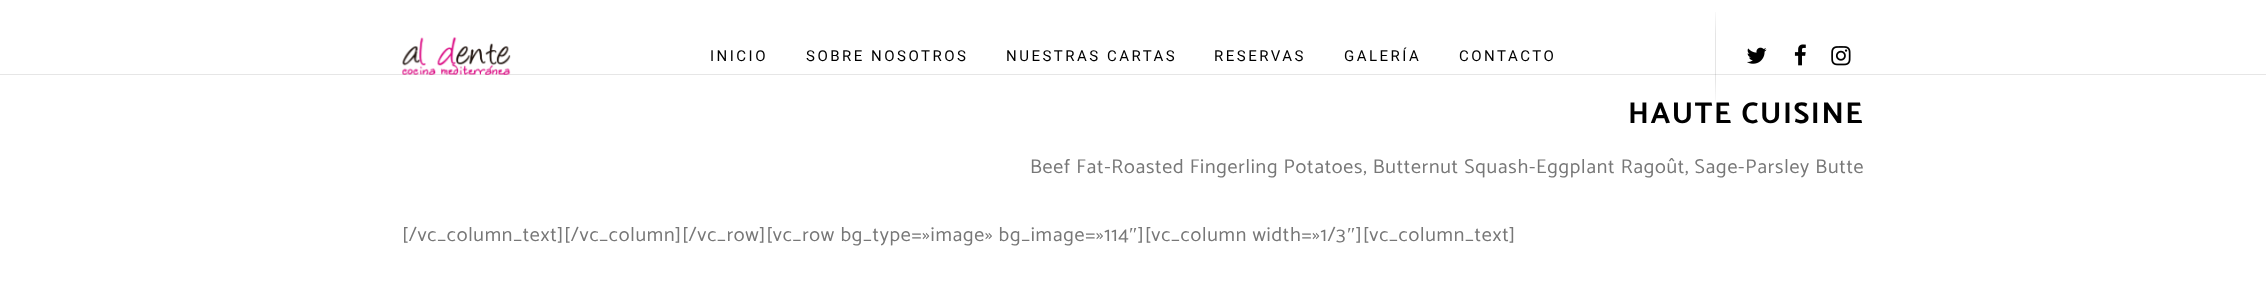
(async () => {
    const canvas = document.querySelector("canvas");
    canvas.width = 2266;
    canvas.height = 305;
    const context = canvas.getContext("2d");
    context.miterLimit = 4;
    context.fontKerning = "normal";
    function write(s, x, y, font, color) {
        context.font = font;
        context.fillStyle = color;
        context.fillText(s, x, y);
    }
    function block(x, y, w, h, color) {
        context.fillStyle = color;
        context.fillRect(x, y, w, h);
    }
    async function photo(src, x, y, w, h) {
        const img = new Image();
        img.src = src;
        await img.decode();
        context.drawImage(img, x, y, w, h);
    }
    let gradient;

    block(0, 0, 2266, 305, "rgb(255, 255, 255)");
    block(0, 74, 2266, 1, "rgb(230, 230, 230)");
    await photo("media/1.png", 402, 37, 109, 38);
    context.letterSpacing = "2.5px";
    write("INICIO", 710, 61, "15px Roboto", "rgb(0, 0, 0)");
    write("SOBRE NOSOTROS", 806, 61, "15px Roboto", "rgb(0, 0, 0)");
    write("NUESTRAS CARTAS", 1006, 61, "15px Roboto", "rgb(0, 0, 0)");
    write("RESERVAS", 1214, 61, "15px Roboto", "rgb(0, 0, 0)");
    write("GALERÍA", 1344, 61, "15px Roboto", "rgb(0, 0, 0)");
    write("CONTACTO", 1459, 61, "15px Roboto", "rgb(0, 0, 0)");
    gradient = context.createLinearGradient(1716, 0, 1716, 113);
    gradient.addColorStop(0.05, "rgba(0, 0, 0, 0)");
    gradient.addColorStop(0.3, "rgba(0, 0, 0, 0.1)");
    gradient.addColorStop(0.7, "rgba(0, 0, 0, 0.1)");
    gradient.addColorStop(0.95, "rgba(0, 0, 0, 0)");
    context.fillStyle = gradient;
    context.fillRect(1715, 12, 1, 89);
    await photo("media/2.png", 1747, 47, 20, 17);
    await photo("media/3.png", 1794, 44, 12, 22);
    await photo("media/4.png", 1831, 46, 20, 20);
    context.letterSpacing = "1.6px";
    write("HAUTE CUISINE", 1628, 123, "bold 30px Catamaran", "rgb(0, 0, 0)");
    context.letterSpacing = "0.75px";
    write("Beef Fat-Roasted Fingerling Potatoes, Butternut Squash-Eggplant Ragoût, Sage-Parsley Butte", 1030, 173, "20px Catamaran", "rgb(119, 119, 119)");
    write("[/vc_column_text][/vc_column][/vc_row][vc_row bg_type=»image» bg_image=»114", 402, 241, "20px Catamaran", "rgb(119, 119, 119)");
    write("″", 1129, 241, "20px Liberation Serif", "rgb(119, 119, 119)");
    write("][vc_column width=»1/3", 1138, 241, "20px Catamaran", "rgb(119, 119, 119)");
    write("″", 1347, 241, "20px Liberation Serif", "rgb(119, 119, 119)");
    write("][vc_column_text]", 1356, 241, "20px Catamaran", "rgb(119, 119, 119)");
})();
